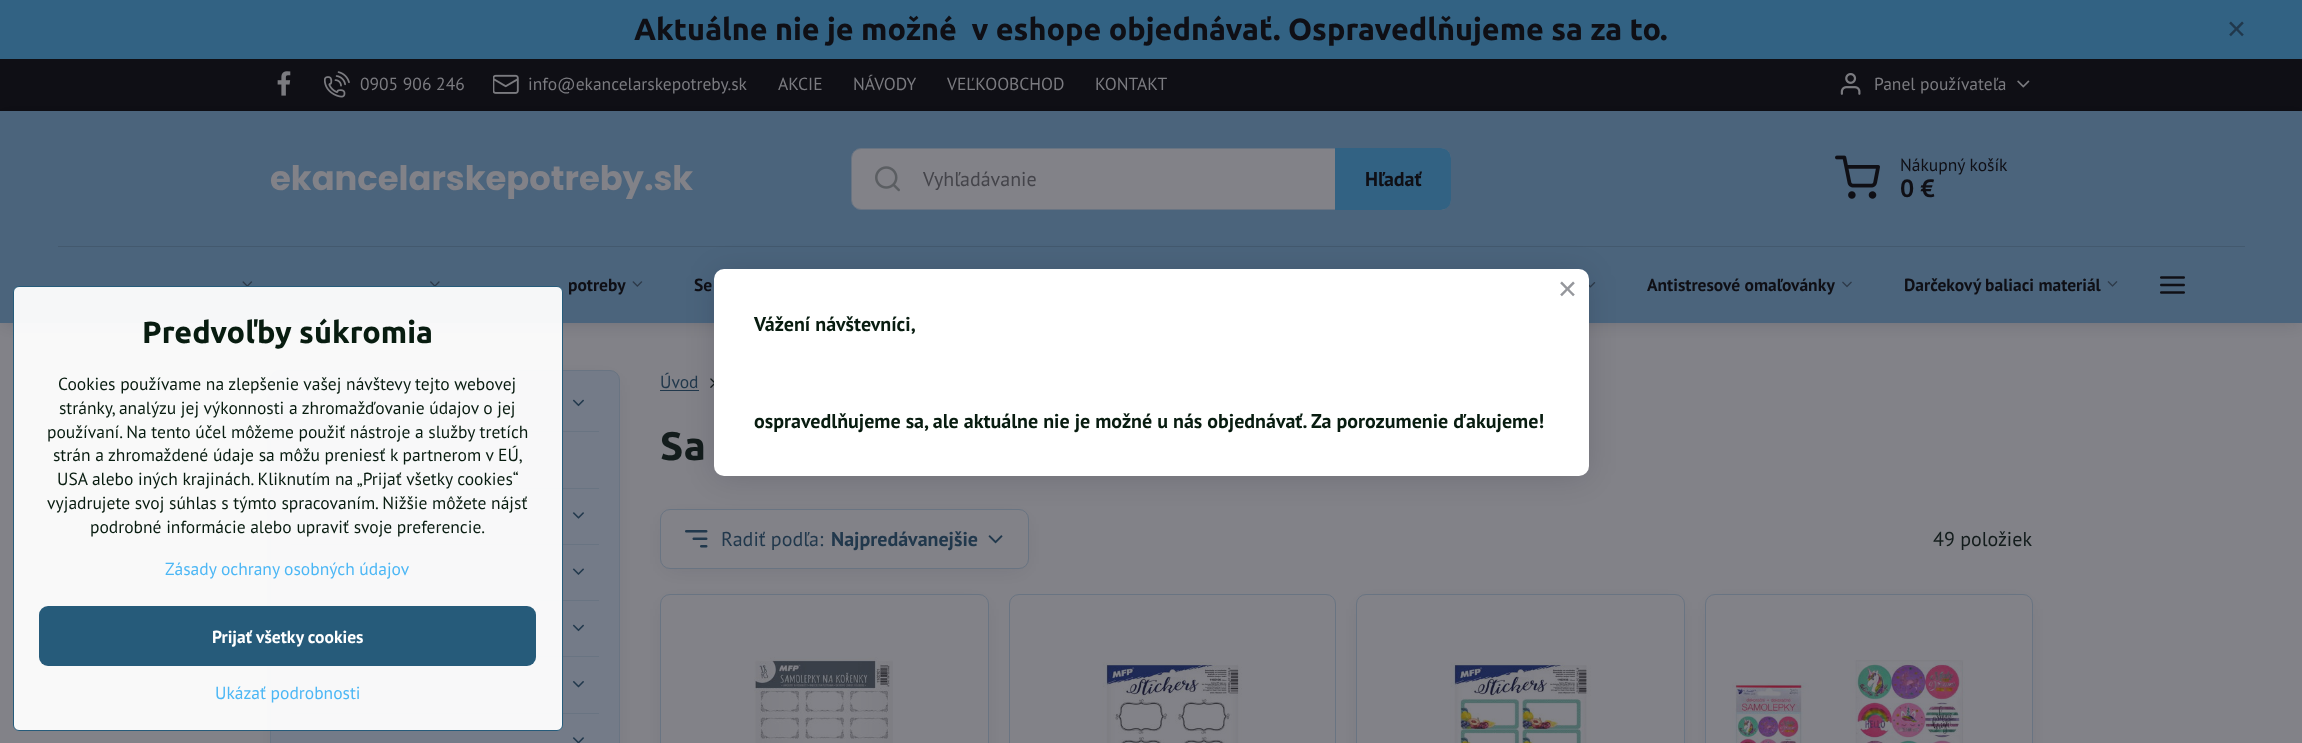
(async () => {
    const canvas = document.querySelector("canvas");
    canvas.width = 2302;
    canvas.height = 743;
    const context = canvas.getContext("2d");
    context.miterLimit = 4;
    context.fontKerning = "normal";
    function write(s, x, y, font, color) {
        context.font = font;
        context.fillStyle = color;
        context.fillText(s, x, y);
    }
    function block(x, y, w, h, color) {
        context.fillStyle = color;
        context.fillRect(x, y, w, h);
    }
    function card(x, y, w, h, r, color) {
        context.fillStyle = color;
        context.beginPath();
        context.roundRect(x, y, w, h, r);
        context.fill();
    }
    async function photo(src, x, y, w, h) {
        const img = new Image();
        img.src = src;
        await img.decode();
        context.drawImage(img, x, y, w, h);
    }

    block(0, 0, 2302, 743, "rgb(130, 130, 136)");
    block(0, 0, 2302, 59, "rgb(50, 98, 131)");
    write("Aktuálne nie je možné  v eshope objednávať. Ospravedlňujeme sa za to.", 634, 40, "bold 30.6px Ubuntu", "rgb(15, 15, 21)");
    write("✕", 2226, 38, "25px DejaVu Sans", "rgb(33, 56, 76)");
    block(0, 59, 2302, 52, "rgb(15, 15, 21)");
    await photo("media/1.png", 277, 71, 14, 25);
    await photo("media/2.png", 324, 71, 26, 27);
    write("0905 906 246", 360, 90, "17.5px PT Sans", "rgb(123, 123, 128)");
    await photo("media/3.png", 493, 74, 26, 20);
    write("info@ekancelarskepotreby.sk", 528, 90, "17.5px PT Sans", "rgb(123, 123, 128)");
    write("AKCIE", 778, 90, "17.5px PT Sans", "rgb(123, 123, 128)");
    write("NÁVODY", 853, 90, "17.5px PT Sans", "rgb(123, 123, 128)");
    write("VEĽKOOBCHOD", 947, 90, "17.5px PT Sans", "rgb(123, 123, 128)");
    write("KONTAKT", 1095, 90, "17.5px PT Sans", "rgb(123, 123, 128)");
    await photo("media/4.png", 1840, 73, 21, 22);
    write("Panel používateľa", 1874, 90, "17.5px PT Sans", "rgb(123, 123, 128)");
    await photo("media/5.png", 2017, 80, 13, 8);
    context.fillStyle = "rgba(15, 15, 30, 0.15)";
    context.filter = "blur(7.5px)";
    context.beginPath();
    context.rect(5, 121, 2293, 202);
    context.fill();
    context.filter = "none";
    block(0, 111, 2302, 212, "rgb(75, 100, 124)");
    write("ekancelarskepotreby.sk", 270, 190, "bold 33.75px Poppins", "rgb(130, 130, 136)");
    context.beginPath();
    context.roundRect(851.5, 148.5, 599, 61, 9.5);
    context.fill();
    context.strokeStyle = "rgb(105, 116, 130)";
    context.stroke();
    await photo("media/6.png", 875, 166, 25, 26);
    write("Vyhľadávanie", 923, 186, "20px PT Sans", "rgb(68, 68, 74)");
    context.fillStyle = "rgb(50, 98, 131)";
    context.beginPath();
    context.roundRect(1335, 148, 116, 62, [0, 10, 10, 0]);
    context.fill();
    write("Hľadať", 1365, 186, "bold 20px PT Sans", "rgb(15, 15, 21)");
    await photo("media/7.png", 1835, 155, 45, 44);
    write("Nákupný košík", 1900, 171, "17.5px PT Sans", "rgb(15, 15, 21)");
    write("0 €", 1900, 197, "bold 25px PT Sans", "rgb(15, 15, 21)");
    block(58, 246, 2187, 1, "rgb(67, 89, 110)");
    await photo("media/8.png", 242, 281, 11, 5);
    await photo("media/9.png", 430, 281, 10, 5);
    write("potreby", 568, 291, "bold 17.5px PT Sans", "rgb(15, 15, 21)");
    await photo("media/10.png", 632, 281, 11, 6);
    write("Se", 694, 291, "bold 17.5px PT Sans", "rgb(15, 15, 21)");
    await photo("media/11.png", 1589, 282, 7, 6);
    write("Antistresové omaľovánky", 1647, 291, "bold 17.5px PT Sans", "rgb(15, 15, 21)");
    await photo("media/12.png", 1842, 281, 10, 7);
    write("Darčekový baliaci materiál", 1904, 291, "bold 17.5px PT Sans", "rgb(15, 15, 21)");
    await photo("media/13.png", 2107, 281, 11, 6);
    await photo("media/14.png", 2160, 276, 25, 18);
    context.fillStyle = "rgba(15, 15, 30, 0.15)";
    context.filter = "blur(10px)";
    context.beginPath();
    context.rect(280, 385, 330, 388);
    context.fill();
    context.filter = "none";
    context.fillStyle = "rgb(116, 123, 136)";
    context.beginPath();
    context.roundRect(270.5, 370.5, 349, 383, 9.5);
    context.fill();
    context.stroke();
    block(291, 431, 308, 1, "rgb(105, 116, 130)");
    await photo("media/15.png", 572, 399, 12, 8);
    block(291, 488, 308, 1, "rgb(105, 116, 130)");
    block(291, 544, 308, 1, "rgb(105, 116, 130)");
    await photo("media/16.png", 572, 512, 12, 7);
    block(291, 600, 308, 1, "rgb(105, 116, 130)");
    await photo("media/17.png", 572, 568, 12, 7);
    block(536, 656, 63, 1, "rgb(105, 116, 130)");
    await photo("media/15.png", 572, 624, 12, 8);
    block(291, 713, 308, 1, "rgb(105, 116, 130)");
    await photo("media/18.png", 572, 681, 12, 7);
    await photo("media/19.png", 572, 737, 12, 6);
    write("Úvod", 660, 388, "17.5px PT Sans", "rgb(33, 56, 76)");
    block(660, 390, 39, 1, "rgb(33, 56, 76)");
    await photo("media/20.png", 710, 378, 4, 10);
    write("Sa", 660, 460, "bold 40px Ubuntu", "rgb(19, 28, 28)");
    context.fillStyle = "rgba(15, 15, 30, 0.15)";
    context.filter = "blur(10px)";
    context.beginPath();
    context.rect(670, 524, 349, 40);
    context.fill();
    context.filter = "none";
    context.fillStyle = "rgb(130, 130, 136)";
    context.beginPath();
    context.roundRect(660.5, 509.5, 368, 59, 9.5);
    context.fill();
    context.stroke();
    await photo("media/21.png", 685, 530, 23, 18);
    write("Radiť podľa:", 721, 546, "20px PT Sans", "rgb(33, 56, 76)");
    write("Najpredávanejšie", 831, 546, "bold 20px PT Sans", "rgb(33, 56, 76)");
    await photo("media/22.png", 988, 535, 15, 9);
    write("49 položiek", 1933, 546, "20px PT Sans", "rgb(19, 28, 28)");
    context.fillStyle = "rgba(15, 15, 30, 0.15)";
    context.filter = "blur(10px)";
    context.beginPath();
    context.rect(670, 609, 309, 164);
    context.fill();
    context.filter = "none";
    context.fillStyle = "rgb(130, 130, 136)";
    context.beginPath();
    context.roundRect(660.5, 594.5, 328, 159, 9.5);
    context.fill();
    context.stroke();
    await photo("media/23.png", 754, 657, 139, 86);
    context.beginPath();
    context.roundRect(1009.5, 594.5, 326, 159, 9.5);
    context.stroke();
    await photo("media/24.png", 1102, 662, 140, 81);
    context.fillStyle = "rgba(15, 15, 30, 0.15)";
    context.filter = "blur(10px)";
    context.beginPath();
    context.rect(1366, 609, 309, 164);
    context.fill();
    context.filter = "none";
    context.fillStyle = "rgb(130, 130, 136)";
    context.beginPath();
    context.roundRect(1356.5, 594.5, 328, 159, 9.5);
    context.fill();
    context.stroke();
    await photo("media/25.png", 1450, 662, 141, 81);
    context.fillStyle = "rgba(15, 15, 30, 0.15)";
    context.filter = "blur(10px)";
    context.beginPath();
    context.rect(1715, 609, 308, 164);
    context.fill();
    context.filter = "none";
    context.fillStyle = "rgb(130, 130, 136)";
    context.beginPath();
    context.roundRect(1705.5, 594.5, 327, 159, 9.5);
    context.fill();
    context.stroke();
    await photo("media/26.png", 1732, 660, 233, 83);
    context.fillStyle = "rgba(255, 255, 255, 0.95)";
    context.beginPath();
    context.roundRect(13.5, 286.5, 549, 444, 5.5);
    context.fill();
    context.strokeStyle = "rgb(38, 91, 122)";
    context.stroke();
    write("Predvoľby súkromia", 142, 343, "bold 30.6px Ubuntu", "rgb(8, 28, 16)");
    write("Cookies používame na zlepšenie vašej návštevy tejto webovej", 58, 390, "17.5px PT Sans", "rgb(8, 28, 16)");
    write("stránky, analýzu jej výkonnosti a zhromažďovanie údajov o jej", 59, 414, "17.5px PT Sans", "rgb(8, 28, 16)");
    write("používaní. Na tento účel môžeme použiť nástroje a služby tretích", 47, 438, "17.5px PT Sans", "rgb(8, 28, 16)");
    write("strán a zhromaždené údaje sa môžu preniesť k partnerom v EÚ,", 53, 461, "17.5px PT Sans", "rgb(8, 28, 16)");
    write("USA alebo iných krajinách. Kliknutím na „Prijať všetky cookies“", 57, 485, "17.5px PT Sans", "rgb(8, 28, 16)");
    write("vyjadrujete svoj súhlas s týmto spracovaním. Nižšie môžete nájsť", 47, 509, "17.5px PT Sans", "rgb(8, 28, 16)");
    write("podrobné informácie alebo upraviť svoje preferencie.", 90, 533, "17.5px PT Sans", "rgb(8, 28, 16)");
    write("Zásady ochrany osobných údajov", 165, 575, "17.5px PT Sans", "rgb(76, 183, 245)");
    card(39, 606, 497, 60, 9, "rgb(38, 91, 122)");
    write("Prijať všetky cookies", 212, 643, "bold 17.5px PT Sans", "rgb(255, 255, 255)");
    write("Ukázať podrobnosti", 215, 699, "17.5px PT Sans", "rgb(76, 183, 245)");
    context.fillStyle = "rgba(0, 0, 20, 0.15)";
    context.filter = "blur(15px)";
    context.beginPath();
    context.roundRect(716, 274, 870, 202, 8);
    context.fill();
    context.filter = "none";
    card(714, 269, 875, 207, 10, "rgb(255, 255, 255)");
    write("✕", 1557, 298, "25px DejaVu Sans", "rgb(149, 151, 156)");
    write("Vážení návštevníci,", 754, 331, "bold 20px PT Sans", "rgb(8, 28, 16)");
    write("ospravedlňujeme sa, ale aktuálne nie je možné u nás objednávať. Za porozumenie ďakujeme!", 754, 428, "bold 20px PT Sans", "rgb(8, 28, 16)");
})();
